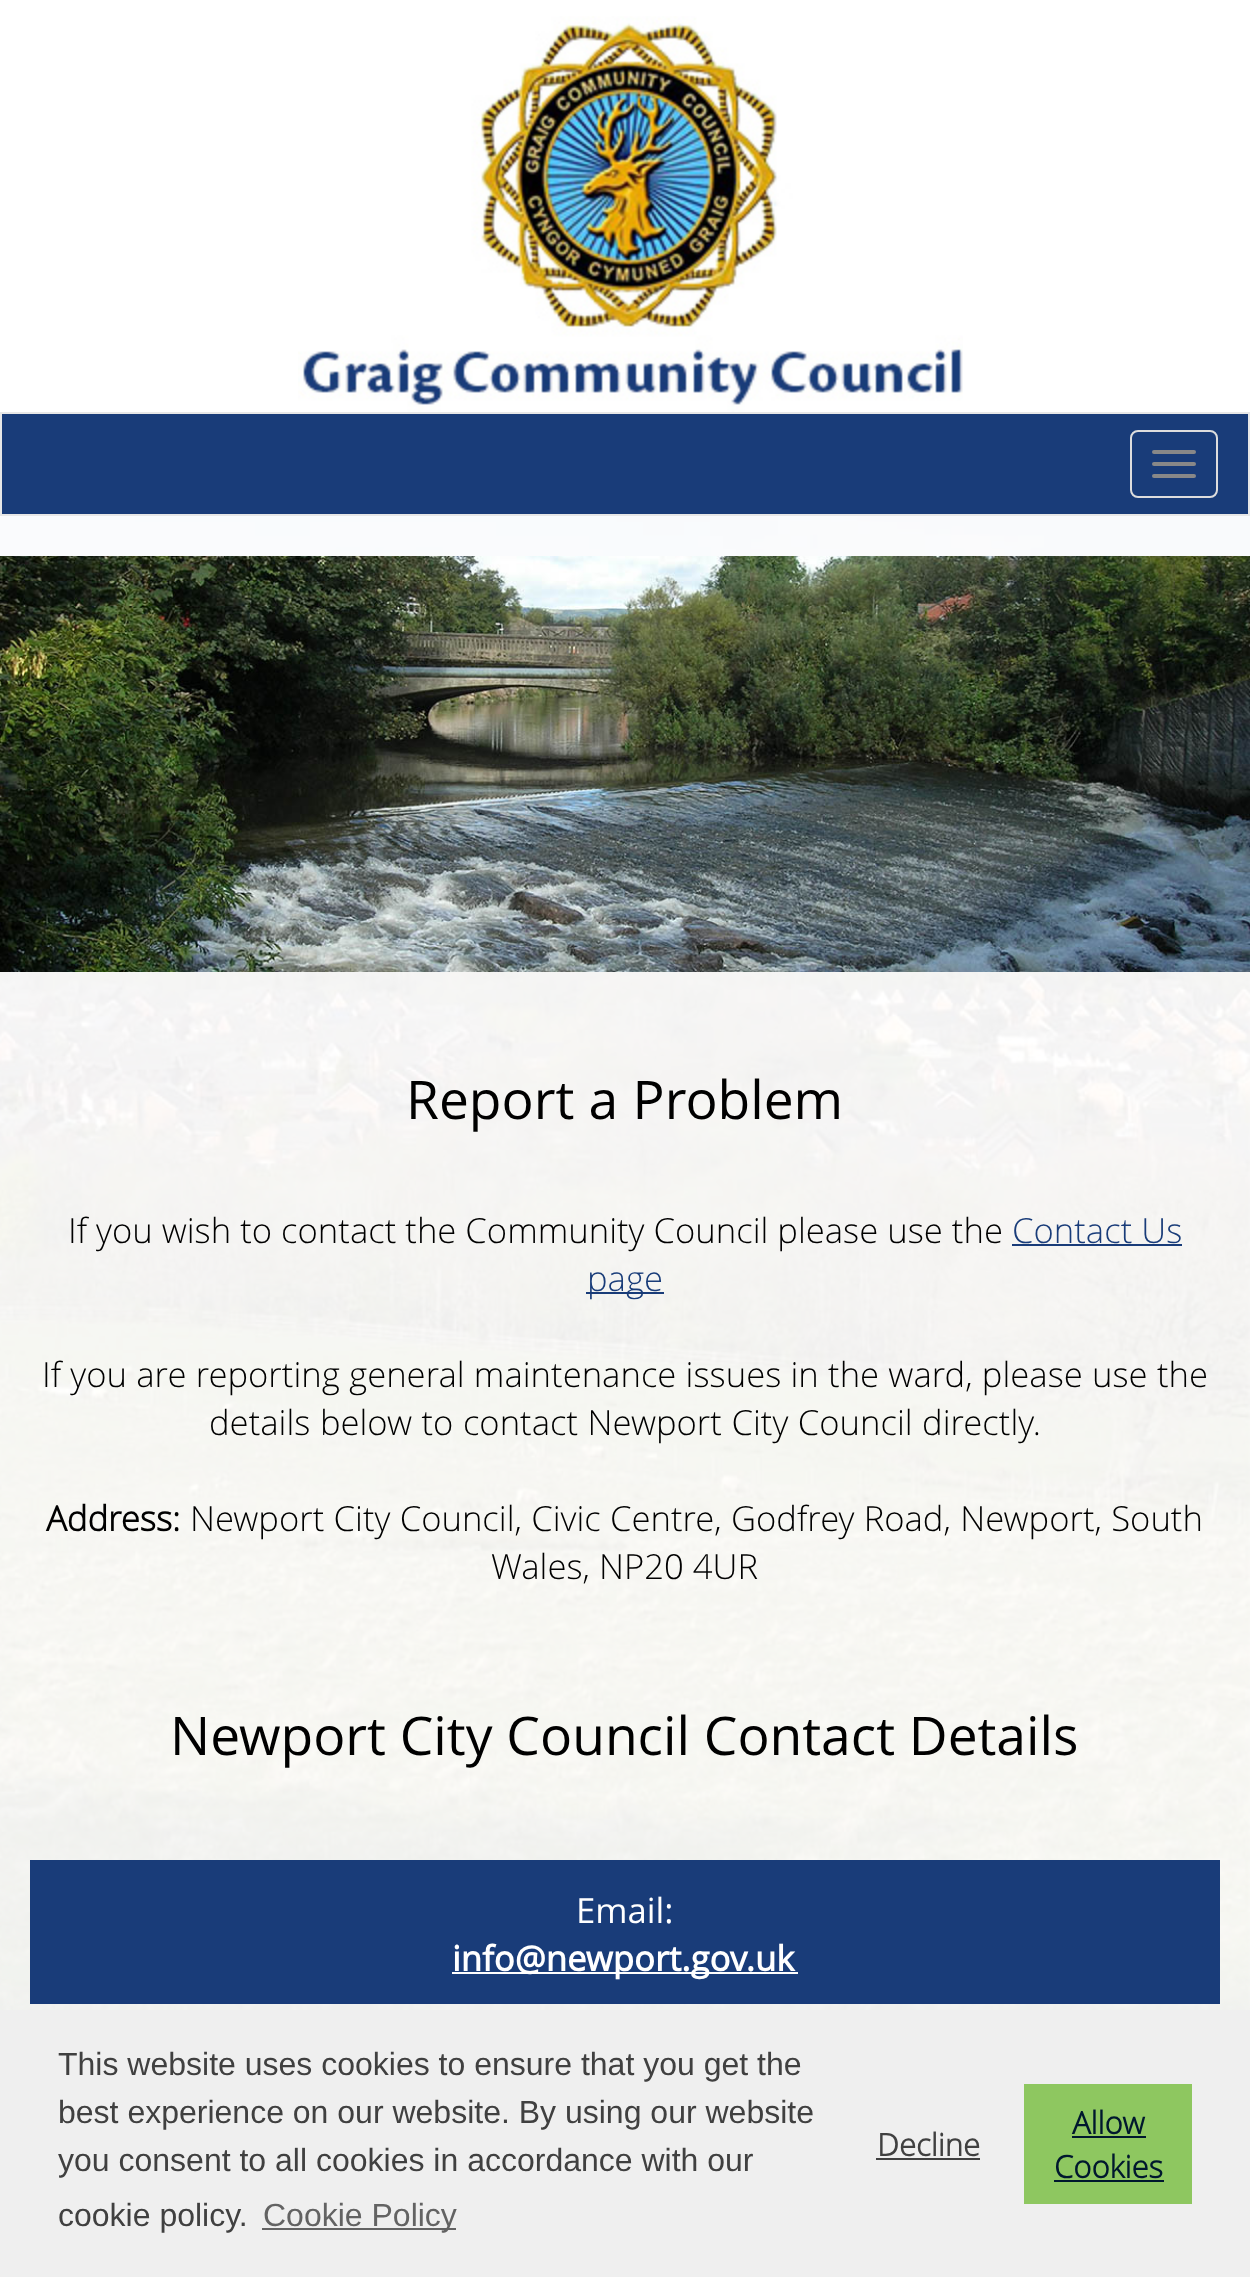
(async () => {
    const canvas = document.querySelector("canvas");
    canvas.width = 1250;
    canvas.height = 2277;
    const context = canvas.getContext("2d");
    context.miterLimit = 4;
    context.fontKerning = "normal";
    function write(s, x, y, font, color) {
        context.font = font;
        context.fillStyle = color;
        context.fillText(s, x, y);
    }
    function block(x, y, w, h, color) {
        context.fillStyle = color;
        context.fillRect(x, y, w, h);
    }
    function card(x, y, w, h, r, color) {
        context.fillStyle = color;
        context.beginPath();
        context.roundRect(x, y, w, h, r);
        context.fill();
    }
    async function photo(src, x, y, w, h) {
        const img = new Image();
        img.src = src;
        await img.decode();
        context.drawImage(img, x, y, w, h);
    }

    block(0, 0, 1250, 2277, "rgb(255, 255, 255)");
    await photo("media/1.png", 0, 516, 1250, 1494);
    await photo("media/2.png", 298, 16, 665, 396);
    context.fillStyle = "rgb(25, 60, 121)";
    context.beginPath();
    context.rect(1, 413, 1248, 102);
    context.fill();
    context.strokeStyle = "rgb(231, 231, 231)";
    context.lineWidth = 2;
    context.stroke();
    context.beginPath();
    context.roundRect(1131, 431, 86, 66, 7);
    context.strokeStyle = "rgb(221, 221, 221)";
    context.stroke();
    card(1152, 450, 44, 4, 2, "rgb(136, 136, 136)");
    card(1152, 462, 44, 4, 2, "rgb(136, 136, 136)");
    card(1152, 474, 44, 4, 2, "rgb(136, 136, 136)");
    block(0, 516, 1250, 1494, "rgba(255, 255, 255, 0.84)");
    await photo("media/3.png", 0, 556, 1250, 416);
    context.wordSpacing = "0.5px";
    write("Report a Problem", 406, 1119, "53.3px Open Sans", "rgb(0, 0, 0)");
    context.wordSpacing = "0px";
    write("If you wish to contact the Community Council please use the", 68, 1243, "300 34.65px Open Sans", "rgb(0, 0, 0)");
    write("Contact Us", 1012, 1243, "300 34.65px Open Sans", "rgb(25, 60, 121)");
    block(1012, 1244, 170, 2, "rgb(25, 60, 121)");
    block(586, 1292, 78, 2, "rgb(25, 60, 121)");
    write("page", 587, 1291, "300 34.65px Open Sans", "rgb(25, 60, 121)");
    context.wordSpacing = "0.25px";
    write("If you are reporting general maintenance issues in the ward, please use the", 42, 1387, "300 34.65px Open Sans", "rgb(0, 0, 0)");
    context.wordSpacing = "0.5px";
    write("details below to contact Newport City Council directly.", 209, 1435, "300 34.65px Open Sans", "rgb(0, 0, 0)");
    context.wordSpacing = "0px";
    write("Address:", 46, 1531, "bold 34.65px Open Sans", "rgb(0, 0, 0)");
    context.wordSpacing = "0.25px";
    write("Newport City Council, Civic Centre, Godfrey Road, Newport, South", 190, 1531, "300 34.65px Open Sans", "rgb(0, 0, 0)");
    context.wordSpacing = "0px";
    write("Wales, NP20 4UR", 491, 1579, "300 34.65px Open Sans", "rgb(0, 0, 0)");
    write("Newport City Council Contact Details", 170, 1755, "53.3px Open Sans", "rgb(0, 0, 0)");
    block(30, 1860, 1190, 144, "rgb(25, 60, 121)");
    write("Email:", 576, 1923, "34.65px Open Sans", "rgb(255, 255, 255)");
    block(452, 1972, 346, 2, "rgb(255, 255, 255)");
    write("info@newport.gov.uk", 452, 1971, "bold 34.65px 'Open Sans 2'", "rgb(255, 255, 255)");
    block(0, 2010, 1250, 267, "rgb(239, 239, 239)");
    write("This website uses cookies to ensure that you get the", 58, 2075, "32px Liberation Sans", "rgb(64, 64, 64)");
    write("best experience on our website. By using our website", 58, 2123, "32px Liberation Sans", "rgb(64, 64, 64)");
    write("you consent to all cookies in accordance with our", 58, 2171, "32px Liberation Sans", "rgb(64, 64, 64)");
    write("cookie policy.", 58, 2226, "32px Liberation Sans", "rgb(64, 64, 64)");
    block(262, 2228, 194, 2, "rgb(99, 99, 99)");
    write("Cookie Policy", 263, 2226, "32px Liberation Sans", "rgb(99, 99, 99)");
    write("Decline", 877, 2156, "bold 31px Open Sans", "rgb(64, 64, 64)");
    block(876, 2158, 104, 2, "rgb(64, 64, 64)");
    block(1024, 2084, 168, 120, "rgb(142, 199, 96)");
    write("Allow", 1072, 2134, "bold 31px Open Sans", "rgb(0, 24, 46)");
    block(1072, 2136, 74, 2, "rgb(0, 24, 46)");
    write("Cookies", 1054, 2178, "bold 31px Open Sans", "rgb(0, 24, 46)");
    block(1054, 2180, 110, 2, "rgb(0, 24, 46)");
})();
